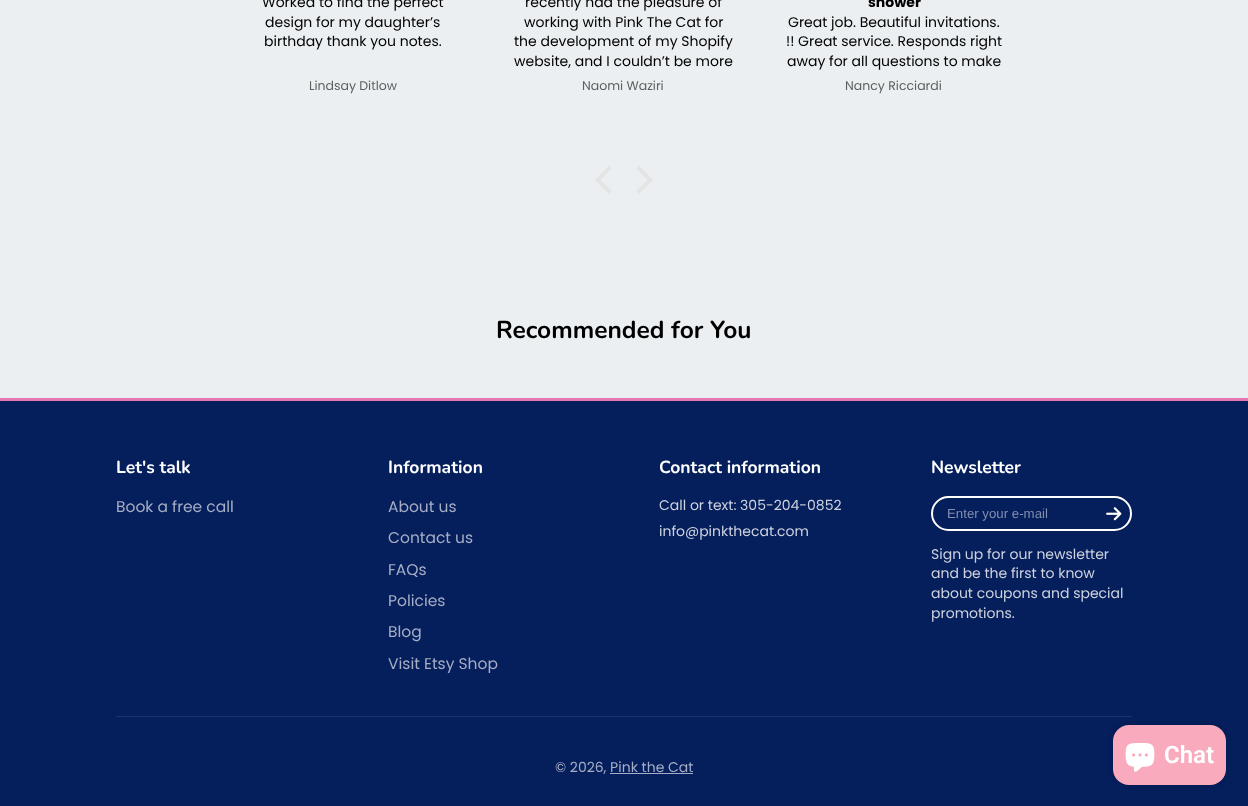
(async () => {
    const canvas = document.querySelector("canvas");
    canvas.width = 1248;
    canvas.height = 806;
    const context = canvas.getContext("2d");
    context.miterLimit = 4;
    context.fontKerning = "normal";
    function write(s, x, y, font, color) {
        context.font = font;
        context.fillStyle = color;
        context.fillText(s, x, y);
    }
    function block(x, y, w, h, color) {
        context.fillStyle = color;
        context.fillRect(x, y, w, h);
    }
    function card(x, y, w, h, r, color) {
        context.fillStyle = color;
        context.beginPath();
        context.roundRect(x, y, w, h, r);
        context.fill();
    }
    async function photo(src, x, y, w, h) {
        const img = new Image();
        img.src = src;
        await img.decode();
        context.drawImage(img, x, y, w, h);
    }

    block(0, 0, 1248, 806, "rgb(235, 239, 241)");
    write("Worked to find the perfect", 262, 7, "14px Poppins", "rgb(0, 0, 0)");
    write("design for my daughter’s", 265, 27, "14px Poppins", "rgb(0, 0, 0)");
    write("birthday thank you notes.", 264, 46, "14px Poppins", "rgb(0, 0, 0)");
    write("Lindsay Ditlow", 309, 90, "12.5px Poppins", "rgb(94, 96, 96)");
    write("recently had the pleasure of", 525, 7, "14px Poppins", "rgb(0, 0, 0)");
    write("working with Pink The Cat for", 524, 27, "14px Poppins", "rgb(0, 0, 0)");
    write("the development of my Shopify", 514, 46, "14px Poppins", "rgb(0, 0, 0)");
    write("website, and I couldn’t be more", 514, 66, "14px Poppins", "rgb(0, 0, 0)");
    write("Naomi Waziri", 582, 90, "12.5px Poppins", "rgb(94, 96, 96)");
    write("shower", 868, 7, "bold 14px Poppins", "rgb(0, 0, 0)");
    write("Great job. Beautiful invitations.", 788, 27, "14px Poppins", "rgb(0, 0, 0)");
    write("!! Great service. Responds right", 786, 46, "14px Poppins", "rgb(0, 0, 0)");
    write("away for all questions to make", 787, 66, "14px Poppins", "rgb(0, 0, 0)");
    write("Nancy Ricciardi", 845, 90, "12.5px Poppins", "rgb(94, 96, 96)");
    context.fillStyle = "rgb(228, 228, 228)";
    context.beginPath();
    context.moveTo(595, 180);
    context.lineTo(609, 165.5);
    context.lineTo(612, 168.5);
    context.lineTo(597.5, 182.5);
    context.closePath();
    context.fill();
    context.beginPath();
    context.moveTo(595, 180);
    context.lineTo(597.5, 177);
    context.lineTo(612, 191);
    context.lineTo(609, 194);
    context.closePath();
    context.moveTo(636, 168.5);
    context.lineTo(639, 165.5);
    context.lineTo(653, 180);
    context.lineTo(650.5, 182.5);
    context.closePath();
    context.fill();
    context.beginPath();
    context.moveTo(636, 191);
    context.lineTo(650.5, 177);
    context.lineTo(653, 180);
    context.lineTo(639, 194);
    context.closePath();
    context.fill();
    write("Recommended for You", 496, 338, "bold 24.5px Nunito", "rgb(0, 0, 0)");
    block(0, 401, 1248, 405, "rgb(5, 30, 92)");
    block(0, 398, 1248, 3, "rgb(231, 117, 177)");
    write("Let's talk", 116, 473, "bold 17.5px Nunito", "rgb(255, 255, 255)");
    write("Book a free call", 116, 512, "15.5px Poppins", "rgb(165, 174, 196)");
    write("Information", 388, 473, "bold 17.5px Nunito", "rgb(255, 255, 255)");
    write("About us", 388, 512, "15.5px Poppins", "rgb(165, 174, 196)");
    write("Contact us", 388, 543, "15.5px Poppins", "rgb(165, 174, 196)");
    write("FAQs", 388, 575, "15.5px Poppins", "rgb(165, 174, 196)");
    write("Policies", 388, 606, "15.5px Poppins", "rgb(165, 174, 196)");
    write("Blog", 388, 637, "15.5px Poppins", "rgb(165, 174, 196)");
    write("Visit Etsy Shop", 388, 669, "15.5px Poppins", "rgb(165, 174, 196)");
    write("Contact information", 659, 473, "bold 17.5px Nunito", "rgb(255, 255, 255)");
    write("Call or text: 305-204-0852", 659, 510, "14px Poppins", "rgb(205, 210, 222)");
    write("info@pinkthecat.com", 659, 536, "14px Poppins", "rgb(205, 210, 222)");
    write("Newsletter", 931, 473, "bold 17.5px Nunito", "rgb(255, 255, 255)");
    context.beginPath();
    context.roundRect(932, 497, 199, 33, 16.5);
    context.strokeStyle = "rgb(255, 255, 255)";
    context.lineWidth = 2;
    context.stroke();
    write("Enter your e-mail", 947, 518, "13.25px Liberation Sans", "rgb(130, 143, 174)");
    await photo("media/1.png", 1106, 507, 16, 14);
    write("Sign up for our newsletter", 931, 559, "14px Poppins", "rgb(205, 210, 222)");
    write("and be the first to know", 931, 578, "14px Poppins", "rgb(205, 210, 222)");
    write("about coupons and special", 931, 598, "14px Poppins", "rgb(205, 210, 222)");
    write("promotions.", 931, 618, "14px Poppins", "rgb(205, 210, 222)");
    block(116, 716, 1016, 1, "rgb(30, 53, 108)");
    write("© 2026, Pink the Cat", 555, 772, "14px Poppins", "rgb(165, 174, 196)");
    block(610, 773, 83, 1, "rgb(165, 174, 196)");
    context.fillStyle = "rgba(0, 0, 0, 0.15)";
    context.filter = "blur(2.5px)";
    context.beginPath();
    context.roundRect(1113, 725, 113, 60, 16);
    context.fill();
    context.filter = "none";
    card(1113, 725, 113, 60, 16, "rgb(249, 171, 189)");
    await photo("media/2.png", 1125, 743, 30, 29);
    write("Chat", 1164, 763, "600 24px Roboto", "rgb(255, 255, 255)");
})();
